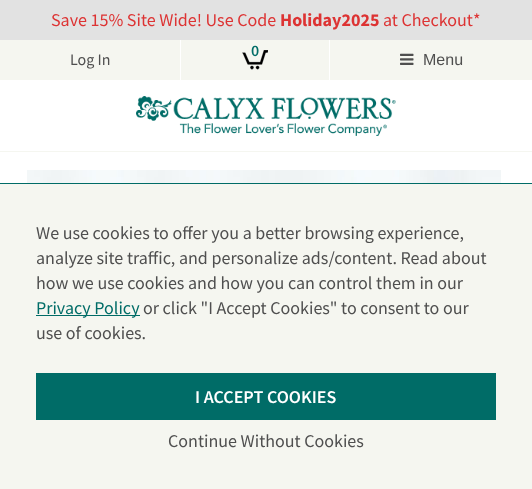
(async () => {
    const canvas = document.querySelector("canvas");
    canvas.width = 532;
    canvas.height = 489;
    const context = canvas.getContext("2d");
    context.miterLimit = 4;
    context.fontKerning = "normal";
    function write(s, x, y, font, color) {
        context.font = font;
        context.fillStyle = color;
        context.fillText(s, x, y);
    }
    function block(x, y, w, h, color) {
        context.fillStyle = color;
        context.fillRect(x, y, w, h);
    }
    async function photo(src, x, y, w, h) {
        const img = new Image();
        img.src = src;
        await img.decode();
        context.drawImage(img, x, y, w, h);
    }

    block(0, 0, 532, 489, "rgb(255, 255, 255)");
    block(0, 151, 532, 1, "rgb(245, 246, 240)");
    block(0, 0, 532, 40, "rgb(226, 226, 226)");
    write("Save 15% Site Wide! Use Code", 51, 26, "18px Source Sans Pro", "rgb(221, 51, 51)");
    write("Holiday2025", 280, 26, "bold 18px Source Sans Pro", "rgb(221, 51, 51)");
    write("at Checkout*", 383, 26, "18px Source Sans Pro", "rgb(221, 51, 51)");
    block(181, 40, 148, 40, "rgb(245, 246, 240)");
    await photo("media/1.png", 242, 50, 26, 20);
    write("0", 251, 56, "600 16px Source Sans Pro", "rgb(0, 108, 103)");
    block(0, 40, 180, 40, "rgb(245, 246, 240)");
    write("Log In", 70, 65, "16px Source Sans Pro", "rgb(79, 79, 79)");
    block(330, 40, 202, 40, "rgb(245, 246, 240)");
    await photo("media/2.png", 400, 53, 14, 12);
    write("Menu", 423, 65, "16px Liberation Sans", "rgb(79, 79, 79)");
    await photo("media/3.png", 136, 96, 260, 40);
    await photo("media/4.png", 27, 170, 474, 13);
    block(0, 184, 532, 305, "rgb(245, 246, 240)");
    block(0, 183, 532, 1, "rgb(0, 108, 103)");
    write("We use cookies to offer you a better browsing experience,", 36, 239, "18px Source Sans Pro", "rgb(79, 79, 79)");
    write("analyze site traffic, and personalize ads/content. Read about", 36, 264, "18px Source Sans Pro", "rgb(79, 79, 79)");
    write("how we use cookies and how you can control them in our", 36, 289, "18px Source Sans Pro", "rgb(79, 79, 79)");
    block(36, 315, 104, 1, "rgb(0, 108, 103)");
    write("Privacy Policy", 36, 314, "18px Source Sans Pro", "rgb(0, 108, 103)");
    write("or click \"I Accept Cookies\" to consent to our", 143, 314, "18px Source Sans Pro", "rgb(79, 79, 79)");
    write("use of cookies.", 36, 339, "18px Source Sans Pro", "rgb(79, 79, 79)");
    block(36, 373, 460, 47, "rgb(0, 108, 103)");
    write("I ACCEPT COOKIES", 195, 403, "600 18px Source Sans Pro", "rgb(255, 255, 255)");
    write("Continue Without Cookies", 168, 447, "18px Source Sans Pro", "rgb(79, 79, 79)");
})();
